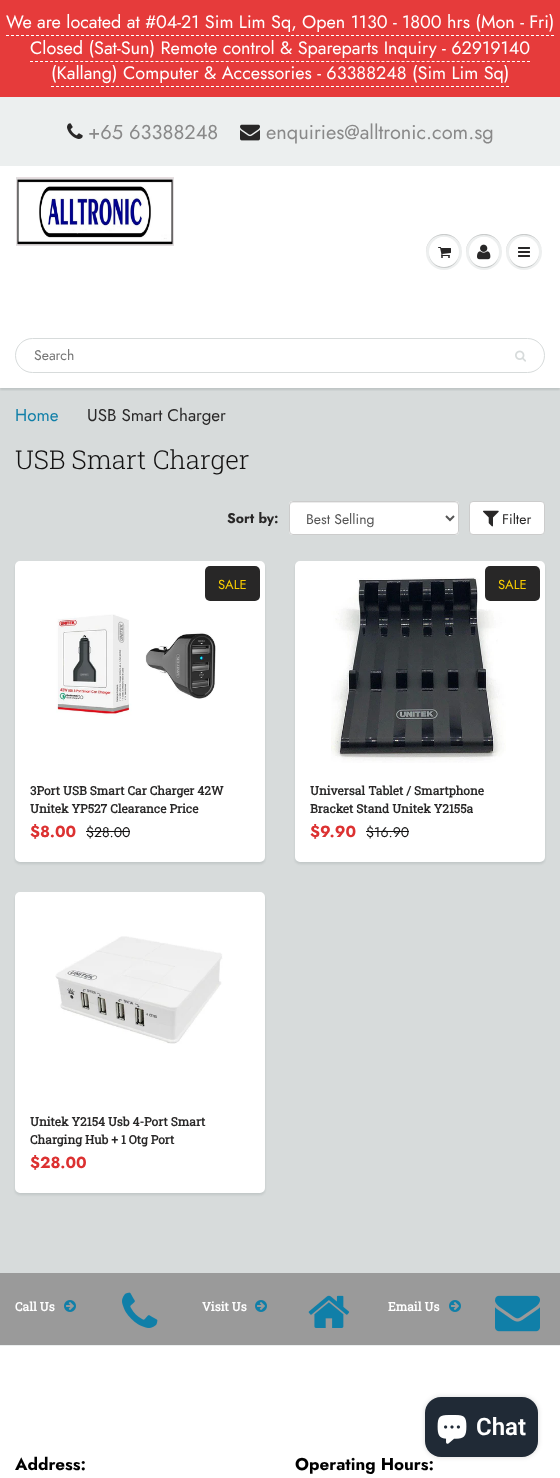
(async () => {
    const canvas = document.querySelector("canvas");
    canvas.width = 560;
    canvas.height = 1478;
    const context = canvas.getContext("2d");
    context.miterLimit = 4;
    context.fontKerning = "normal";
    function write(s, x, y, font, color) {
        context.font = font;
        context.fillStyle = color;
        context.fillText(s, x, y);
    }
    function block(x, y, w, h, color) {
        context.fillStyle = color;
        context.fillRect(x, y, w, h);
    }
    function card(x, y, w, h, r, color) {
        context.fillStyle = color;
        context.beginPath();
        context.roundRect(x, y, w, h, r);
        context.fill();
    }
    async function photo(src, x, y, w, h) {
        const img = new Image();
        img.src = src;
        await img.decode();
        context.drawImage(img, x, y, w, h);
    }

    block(0, 0, 560, 1478, "rgb(255, 255, 255)");
    block(0, 0, 560, 97, "rgb(230, 59, 59)");
    write("We are located at #04-21 Sim Lim Sq, Open 1130 - 1800 hrs (Mon - Fri)", 6, 28, "18px Jost", "rgb(255, 255, 255)");
    context.beginPath();
    context.moveTo(6, 35.5);
    context.lineTo(554, 35.5);
    context.strokeStyle = "rgb(255, 255, 255)";
    context.setLineDash([3, 2]);
    context.stroke();
    write("Closed (Sat-Sun) Remote control & Spareparts Inquiry - 62919140", 30, 54, "18px Jost", "rgb(255, 255, 255)");
    write("(Kallang) Computer & Accessories - 63388248 (Sim Lim Sq)", 51, 79, "18px Jost", "rgb(255, 255, 255)");
    context.beginPath();
    context.moveTo(30, 61.5);
    context.lineTo(530, 61.5);
    context.setLineDash([3, 2.02]);
    context.stroke();
    context.beginPath();
    context.moveTo(51, 86.5);
    context.lineTo(509, 86.5);
    context.setLineDash([3, 2]);
    context.stroke();
    block(0, 97, 560, 68, "rgb(236, 239, 239)");
    await photo("media/1.png", 67, 123, 16, 16);
    write("+65 63388248", 88, 139, "20px Jost", "rgb(137, 137, 137)");
    await photo("media/2.png", 240, 124, 20, 17);
    write("enquiries@alltronic.com.sg", 266, 139, "20px Jost", "rgb(137, 137, 137)");
    block(0, 388, 560, 885, "rgb(215, 219, 219)");
    context.save();
    context.beginPath();
    context.rect(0, 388, 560, 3);
    context.clip();
    context.fillStyle = "rgba(11, 25, 28, 0.12)";
    context.filter = "blur(1px)";
    context.beginPath();
    context.rect(0, 167, 560, 223);
    context.fill();
    context.filter = "none";
    context.restore();
    block(0, 165, 560, 1, "rgb(236, 239, 239)");
    await photo("media/3.png", 16, 177, 158, 69);
    context.fillStyle = "rgb(237, 239, 239)";
    context.beginPath();
    context.arc(444, 252, 18, 0, Math.PI * 2);
    context.fill();
    context.fillStyle = "rgb(201, 203, 203)";
    context.beginPath();
    context.moveTo(444, 235);
    context.bezierCurveTo(456, 235, 462, 243.5, 462, 252.5);
    context.bezierCurveTo(462, 249, 461, 245, 459, 242);
    context.bezierCurveTo(449, 227, 425.5, 234.5, 426, 252.5);
    context.bezierCurveTo(426, 243.5, 432, 235, 444, 235);
    context.closePath();
    context.fill();
    context.beginPath();
    context.moveTo(429, 252.5);
    context.bezierCurveTo(428.5, 267.5, 448, 274, 456.5, 261.5);
    context.bezierCurveTo(458, 259, 459, 255.5, 459, 252.5);
    context.bezierCurveTo(458.5, 271.5, 429.5, 271.5, 429, 252.5);
    context.closePath();
    context.fill();
    context.fillStyle = "rgb(255, 255, 255)";
    context.beginPath();
    context.arc(444, 252, 15, 0, Math.PI * 2);
    context.fill();
    context.beginPath();
    context.moveTo(444, 238);
    context.bezierCurveTo(454, 238, 459, 245, 459, 252.5);
    context.bezierCurveTo(459, 249.5, 458, 246, 456.5, 243.5);
    context.bezierCurveTo(448, 231, 428.5, 237.5, 429, 252.5);
    context.bezierCurveTo(429, 245, 434, 238, 444, 238);
    context.closePath();
    context.fill();
    await photo("media/4.png", 438, 247, 13, 11);
    context.fillStyle = "rgb(237, 239, 239)";
    context.beginPath();
    context.arc(484, 252, 18, 0, Math.PI * 2);
    context.fill();
    context.fillStyle = "rgb(201, 203, 203)";
    context.beginPath();
    context.moveTo(484, 235);
    context.bezierCurveTo(496, 235, 502, 243.5, 502, 252.5);
    context.bezierCurveTo(502, 249, 501, 245, 499, 242);
    context.bezierCurveTo(489, 227, 465.5, 234.5, 466, 252.5);
    context.bezierCurveTo(466, 243.5, 472, 235, 484, 235);
    context.closePath();
    context.fill();
    context.beginPath();
    context.moveTo(469, 252.5);
    context.bezierCurveTo(468.5, 267.5, 488, 274, 496.5, 261.5);
    context.bezierCurveTo(498, 259, 499, 255.5, 499, 252.5);
    context.bezierCurveTo(498.5, 271.5, 469.5, 271.5, 469, 252.5);
    context.closePath();
    context.fill();
    context.fillStyle = "rgb(255, 255, 255)";
    context.beginPath();
    context.arc(484, 252, 15, 0, Math.PI * 2);
    context.fill();
    context.beginPath();
    context.moveTo(484, 238);
    context.bezierCurveTo(494, 238, 499, 245, 499, 252.5);
    context.bezierCurveTo(499, 249.5, 498, 246, 496.5, 243.5);
    context.bezierCurveTo(488, 231, 468.5, 237.5, 469, 252.5);
    context.bezierCurveTo(469, 245, 474, 238, 484, 238);
    context.closePath();
    context.fill();
    await photo("media/5.png", 477, 244, 14, 16);
    context.fillStyle = "rgb(237, 239, 239)";
    context.beginPath();
    context.arc(524, 252, 18, 0, Math.PI * 2);
    context.fill();
    context.fillStyle = "rgb(201, 203, 203)";
    context.beginPath();
    context.moveTo(524, 235);
    context.bezierCurveTo(536, 235, 542, 243.5, 542, 252.5);
    context.bezierCurveTo(542, 249, 541, 245, 539, 242);
    context.bezierCurveTo(529, 227, 505.5, 234.5, 506, 252.5);
    context.bezierCurveTo(506, 243.5, 512, 235, 524, 235);
    context.closePath();
    context.fill();
    context.beginPath();
    context.moveTo(539, 252.5);
    context.bezierCurveTo(538.5, 271.5, 509.5, 271.5, 509, 252.5);
    context.bezierCurveTo(509, 255.5, 510, 259, 511.5, 261.5);
    context.bezierCurveTo(520, 274, 539.5, 267.5, 539, 252.5);
    context.closePath();
    context.fill();
    context.fillStyle = "rgb(255, 255, 255)";
    context.beginPath();
    context.arc(524, 252, 15, 0, Math.PI * 2);
    context.fill();
    context.beginPath();
    context.moveTo(524, 238);
    context.bezierCurveTo(534, 238, 539, 245, 539, 252.5);
    context.bezierCurveTo(539, 249.5, 538, 246, 536.5, 243.5);
    context.bezierCurveTo(528, 231, 508.5, 237.5, 509, 252.5);
    context.bezierCurveTo(509, 245, 514, 238, 524, 238);
    context.closePath();
    context.fill();
    await photo("media/6.png", 518, 247, 12, 10);
    context.beginPath();
    context.roundRect(15.5, 338.5, 529, 34, 17);
    context.strokeStyle = "rgb(215, 219, 219)";
    context.setLineDash([]);
    context.stroke();
    write("Search", 34, 360, "14px Jost", "rgb(117, 117, 117)");
    await photo("media/7.png", 515, 350, 11, 12);
    write("Home", 15, 421, "17px Jost", "rgb(16, 127, 168)");
    write("USB Smart Charger", 87, 421, "17px Jost", "rgb(40, 39, 39)");
    write("USB Smart Charger", 15, 469, "300 26px Roboto Slab", "rgb(19, 18, 18)");
    write("Sort by:", 227, 523, "bold 14px Jost", "rgb(40, 39, 39)");
    card(289, 501, 170, 34, 4, "rgb(255, 255, 255)");
    context.fillStyle = "rgb(236, 236, 236)";
    context.beginPath();
    context.moveTo(293, 503);
    context.lineTo(455, 503);
    context.bezierCurveTo(457, 503, 458, 504, 458, 506);
    context.lineTo(458, 505);
    context.bezierCurveTo(458, 503, 457, 502, 455, 502);
    context.lineTo(293, 502);
    context.bezierCurveTo(291, 502, 290, 503, 290, 505);
    context.lineTo(290, 506);
    context.bezierCurveTo(290, 504, 291, 503, 293, 503);
    context.closePath();
    context.fill();
    context.beginPath();
    context.roundRect(289.5, 501.5, 169, 33, 3.5);
    context.strokeStyle = "rgb(204, 204, 204)";
    context.stroke();
    context.beginPath();
    context.moveTo(446, 516);
    context.lineTo(450, 520);
    context.lineTo(454, 516);
    context.strokeStyle = "rgb(85, 85, 85)";
    context.lineWidth = 2;
    context.stroke();
    write("Best Selling", 306, 524, "14px Jost", "rgb(85, 85, 85)");
    context.fillStyle = "rgb(255, 255, 255)";
    context.beginPath();
    context.roundRect(469.5, 501.5, 75, 33, 3.5);
    context.fill();
    context.strokeStyle = "rgb(204, 204, 204)";
    context.lineWidth = 1;
    context.stroke();
    await photo("media/8.png", 483, 510, 16, 17);
    write("Filter", 502, 524, "14px Jost", "rgb(40, 39, 39)");
    context.fillStyle = "rgba(11, 25, 28, 0.1)";
    context.filter = "blur(1px)";
    context.beginPath();
    context.roundRect(15, 563, 250, 301, 5);
    context.fill();
    context.filter = "none";
    context.fillStyle = "rgb(255, 255, 255)";
    context.beginPath();
    context.roundRect(17.5, 563.5, 245, 296, 2.5);
    context.fill();
    context.strokeStyle = "rgb(255, 255, 255)";
    context.lineWidth = 5;
    context.stroke();
    card(205, 566, 55, 35, 5, "rgb(40, 39, 39)");
    write("SALE", 218, 589, "13px Jost", "rgb(251, 207, 0)");
    await photo("media/9.png", 56, 614, 160, 102);
    write("3Port USB Smart Car Charger 42W", 30, 795, "bold 12px Roboto Slab", "rgb(40, 39, 39)");
    write("Unitek YP527 Clearance Price", 30, 813, "bold 12px Roboto Slab", "rgb(40, 39, 39)");
    write("$8.00", 30, 837, "bold 16px Jost", "rgb(220, 49, 49)");
    write("$28.00", 86, 837, "14px Jost", "rgb(19, 18, 18)");
    block(86, 831, 44, 1, "rgb(19, 18, 18)");
    context.fillStyle = "rgba(11, 25, 28, 0.1)";
    context.filter = "blur(1px)";
    context.beginPath();
    context.roundRect(295, 563, 250, 301, 5);
    context.fill();
    context.filter = "none";
    context.fillStyle = "rgb(255, 255, 255)";
    context.beginPath();
    context.roundRect(297.5, 563.5, 245, 296, 2.5);
    context.fill();
    context.stroke();
    await photo("media/10.png", 331, 577, 175, 186);
    card(485, 566, 55, 35, 5, "rgb(40, 39, 39)");
    write("SALE", 498, 589, "13px Jost", "rgb(251, 207, 0)");
    write("Universal Tablet / Smartphone", 310, 795, "bold 12px Roboto Slab", "rgb(40, 39, 39)");
    write("Bracket Stand Unitek Y2155a", 310, 813, "bold 12px Roboto Slab", "rgb(40, 39, 39)");
    write("$9.90", 310, 837, "bold 16px Jost", "rgb(220, 49, 49)");
    write("$16.90", 366, 837, "14px Jost", "rgb(19, 18, 18)");
    block(366, 831, 43, 1, "rgb(19, 18, 18)");
    context.fillStyle = "rgba(11, 25, 28, 0.1)";
    context.filter = "blur(1px)";
    context.beginPath();
    context.roundRect(15, 894, 250, 301, 5);
    context.fill();
    context.filter = "none";
    context.fillStyle = "rgb(255, 255, 255)";
    context.beginPath();
    context.roundRect(17.5, 894.5, 245, 296, 2.5);
    context.fill();
    context.stroke();
    await photo("media/11.png", 55, 936, 168, 108);
    write("Unitek Y2154 Usb 4-Port Smart", 30, 1126, "bold 12px Roboto Slab", "rgb(40, 39, 39)");
    write("Charging Hub + 1 Otg Port", 30, 1144, "bold 12px Roboto Slab", "rgb(40, 39, 39)");
    write("$28.00", 30, 1168, "bold 16px Jost", "rgb(220, 49, 49)");
    block(0, 1273, 560, 72, "rgb(154, 154, 154)");
    write("Call Us", 15, 1311, "bold 12px Roboto Slab", "rgb(255, 255, 255)");
    await photo("media/12.png", 64, 1300, 12, 12);
    await photo("media/13.png", 122, 1292, 36, 36);
    write("Visit Us", 202, 1311, "bold 12px Roboto Slab", "rgb(255, 255, 255)");
    await photo("media/12.png", 255, 1300, 12, 12);
    await photo("media/14.png", 308, 1295, 42, 33);
    write("Email Us", 388, 1311, "bold 12px Roboto Slab", "rgb(255, 255, 255)");
    await photo("media/12.png", 449, 1300, 12, 12);
    await photo("media/15.png", 495, 1295, 45, 37);
    block(0, 1345, 560, 1, "rgb(236, 239, 239)");
    write("Address:", 15, 1470, "bold 17px Jost", "rgb(0, 0, 0)");
    write("Operating Hours:", 295, 1470, "bold 17px Jost", "rgb(0, 0, 0)");
    context.fillStyle = "rgba(0, 0, 0, 0.15)";
    context.filter = "blur(2.5px)";
    context.beginPath();
    context.roundRect(425, 1397, 113, 60, 16);
    context.fill();
    context.filter = "none";
    card(425, 1397, 113, 60, 16, "rgb(32, 42, 54)");
    await photo("media/16.png", 437, 1415, 30, 29);
    write("Chat", 476, 1435, "600 24px Roboto", "rgb(255, 255, 255)");
})();
